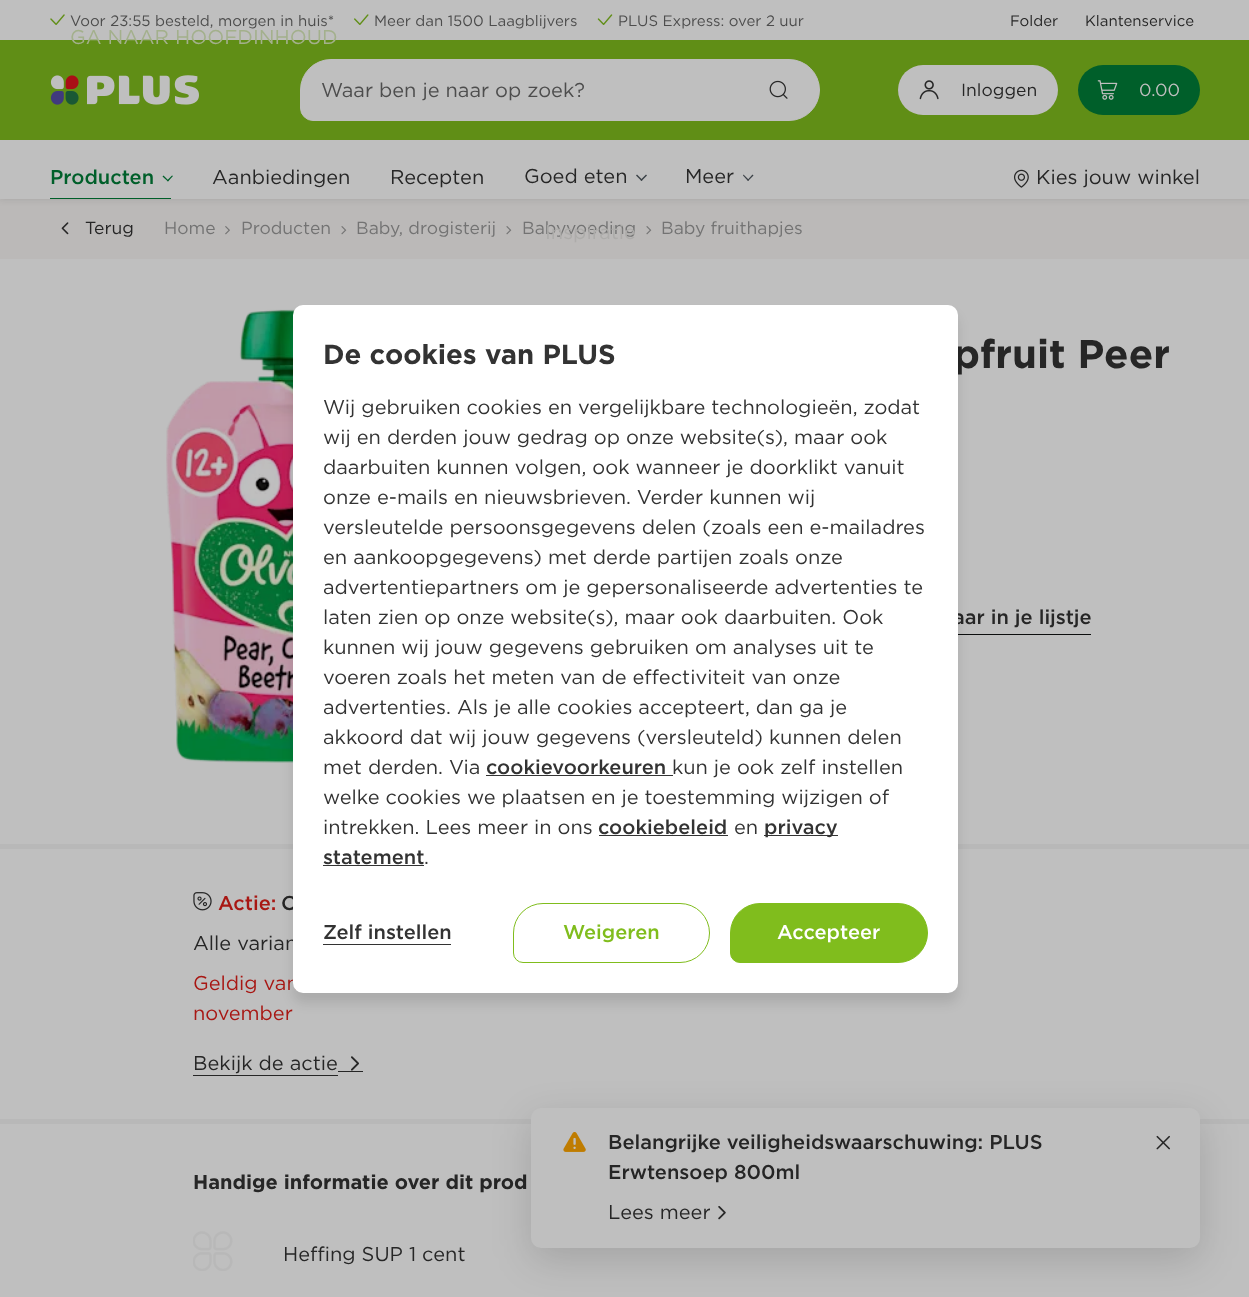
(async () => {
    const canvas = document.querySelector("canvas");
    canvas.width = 1249;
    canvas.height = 1297;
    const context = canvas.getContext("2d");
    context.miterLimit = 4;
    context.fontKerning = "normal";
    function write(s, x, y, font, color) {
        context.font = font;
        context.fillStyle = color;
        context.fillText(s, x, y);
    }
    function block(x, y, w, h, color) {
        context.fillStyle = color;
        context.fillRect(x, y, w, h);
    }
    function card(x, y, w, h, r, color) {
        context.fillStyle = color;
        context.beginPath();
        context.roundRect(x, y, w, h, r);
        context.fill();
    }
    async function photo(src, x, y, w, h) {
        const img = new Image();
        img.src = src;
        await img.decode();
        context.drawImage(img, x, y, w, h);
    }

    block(0, 0, 1249, 1297, "rgb(191, 191, 191)");
    block(0, 199, 1249, 60, "rgb(187, 185, 184)");
    context.fillStyle = "rgba(16, 18, 20, 0.1)";
    context.filter = "blur(3px)";
    context.beginPath();
    context.rect(0, 1, 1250, 199);
    context.fill();
    context.filter = "none";
    block(0, 0, 1249, 199, "rgb(191, 191, 191)");
    await photo("media/1.png", 50, 14, 15, 11);
    write("Voor 23:55 besteld, morgen in huis*", 70, 26, "15px Gotham", "rgb(77, 77, 77)");
    await photo("media/2.png", 354, 14, 15, 11);
    write("Meer dan 1500 Laagblijvers", 374, 26, "15px Gotham", "rgb(77, 77, 77)");
    await photo("media/3.png", 597, 14, 16, 11);
    write("PLUS Express: over 2 uur", 618, 26, "15px Gotham", "rgb(77, 77, 77)");
    write("Folder", 1010, 26, "15px Gotham", "rgb(38, 38, 38)");
    write("Klantenservice", 1085, 26, "15px Gotham", "rgb(38, 38, 38)");
    block(0, 40, 1249, 100, "rgb(96, 142, 22)");
    await photo("media/4.png", 50, 75, 149, 30);
    context.fillStyle = "rgb(191, 191, 191)";
    context.beginPath();
    context.roundRect(300.5, 59.5, 519, 61, [30.5, 30.5, 30.5, 12.5]);
    context.fill();
    context.strokeStyle = "rgb(191, 191, 191)";
    context.stroke();
    write("Waar ben je naar op zoek?", 321, 97, "20px Gotham", "rgb(77, 77, 77)");
    await photo("media/5.png", 769, 80, 19, 19);
    card(898, 65, 160, 50, 25, "rgb(191, 191, 191)");
    await photo("media/6.png", 919, 80, 20, 20);
    write("Inloggen", 961, 96, "17.5px Gotham", "rgb(38, 38, 38)");
    card(1078, 65, 122, 50, 25, "rgb(0, 95, 42)");
    await photo("media/7.png", 1097, 80, 21, 20);
    write("0.00", 1139, 96, "17.5px Gotham", "rgb(191, 191, 191)");
    block(50, 198, 121, 1, "rgb(0, 95, 42)");
    write("Producten", 50, 184, "500 20px Gotham", "rgb(0, 95, 42)");
    context.beginPath();
    context.moveTo(167, 180.5);
    context.lineTo(172, 175.5);
    context.lineTo(173, 176);
    context.lineTo(168, 181.5);
    context.closePath();
    context.fill();
    context.beginPath();
    context.moveTo(162.5, 176.5);
    context.lineTo(163.5, 175.5);
    context.lineTo(168.5, 180.5);
    context.lineTo(168, 181.5);
    context.closePath();
    context.fill();
    write("Aanbiedingen", 212, 184, "20px Gotham", "rgb(38, 38, 38)");
    write("Recepten", 390, 184, "20px Gotham", "rgb(38, 38, 38)");
    write("Goed eten", 524, 183, "20px Gotham", "rgb(38, 38, 38)");
    context.fillStyle = "rgb(59, 65, 71)";
    context.beginPath();
    context.moveTo(640.5, 180);
    context.lineTo(646, 174.5);
    context.lineTo(647, 175.5);
    context.lineTo(641.5, 181);
    context.closePath();
    context.fill();
    context.beginPath();
    context.moveTo(636, 175.5);
    context.lineTo(637, 174.5);
    context.lineTo(642.5, 180);
    context.lineTo(641.5, 181);
    context.closePath();
    context.fill();
    write("Babyvoeding", 522, 234, "17.5px Gotham", "rgb(115, 115, 115)");
    write("Inspiratie", 545, 239, "20px Gotham", "rgb(173, 172, 170)");
    write("Meer", 685, 183, "20px Gotham", "rgb(38, 38, 38)");
    context.fillStyle = "rgb(59, 65, 71)";
    context.beginPath();
    context.moveTo(747.5, 180);
    context.lineTo(752.5, 174.5);
    context.lineTo(753.5, 175.5);
    context.lineTo(748, 181);
    context.closePath();
    context.fill();
    context.beginPath();
    context.moveTo(743, 175.5);
    context.lineTo(743.5, 174.5);
    context.lineTo(749, 180);
    context.lineTo(748, 181);
    context.closePath();
    context.fill();
    await photo("media/8.png", 1014, 169, 15, 19);
    write("Kies jouw winkel", 1036, 184, "20px Gotham", "rgb(38, 38, 38)");
    await photo("media/9.png", 61, 222, 8, 13);
    write("Terug", 85, 234, "17.5px Gotham", "rgb(38, 38, 38)");
    write("Home", 164, 234, "17.5px Gotham", "rgb(115, 115, 115)");
    await photo("media/10.png", 225, 226, 5, 9);
    write("Producten", 241, 234, "17.5px Gotham", "rgb(115, 115, 115)");
    await photo("media/11.png", 341, 226, 6, 9);
    write("Baby, drogisterij", 356, 234, "17.5px Gotham", "rgb(115, 115, 115)");
    await photo("media/11.png", 506, 226, 6, 9);
    await photo("media/11.png", 646, 226, 6, 9);
    write("Baby fruithapjes", 661, 234, "17.5px Gotham", "rgb(115, 115, 115)");
    await photo("media/12.png", 166, 309, 129, 454);
    write("pfruit Peer", 953, 368, "bold 40px Gotham", "rgb(38, 38, 38)");
    block(958, 634, 133, 1, "rgb(12, 14, 14)");
    write("aar in je lijstje", 953, 624, "500 20px Gotham", "rgb(38, 38, 38)");
    block(0, 844, 1249, 5, "rgb(184, 184, 184)");
    await photo("media/13.png", 193, 892, 19, 19);
    write("Actie:", 218, 910, "500 20px Gotham", "rgb(168, 23, 19)");
    write("O", 281, 910, "500 20px Gotham", "rgb(38, 38, 38)");
    write("Alle varian", 193, 950, "20px Gotham", "rgb(38, 38, 38)");
    write("Geldig van", 193, 990, "20px Gotham", "rgb(168, 23, 19)");
    write("november", 193, 1020, "20px Gotham", "rgb(168, 23, 19)");
    block(193, 1075, 145, 1, "rgb(38, 38, 38)");
    block(338, 1071, 25, 1, "rgb(38, 38, 38)");
    write("Bekijk de actie", 193, 1070, "20px Gotham", "rgb(38, 38, 38)");
    await photo("media/14.png", 351, 1056, 8, 15);
    block(0, 1119, 1249, 5, "rgb(184, 184, 184)");
    write("Handige informatie over dit prod", 193, 1189, "bold 20px Gotham", "rgb(38, 38, 38)");
    await photo("media/15.png", 193, 1231, 40, 40);
    write("Heffing SUP 1 cent", 283, 1261, "20px Gotham", "rgb(38, 38, 38)");
    write("GA NAAR HOOFDINHOUD", 70, 44, "20px Gotham", "rgb(163, 176, 140)");
    context.fillStyle = "rgba(0, 0, 0, 0.14)";
    context.filter = "blur(19px)";
    context.beginPath();
    context.roundRect(531, 1120, 669, 140, 10);
    context.fill();
    context.filter = "none";
    card(531, 1108, 669, 140, 10, "rgb(191, 191, 191)");
    await photo("media/16.png", 563, 1132, 23, 20);
    write("Belangrijke veiligheidswaarschuwing: PLUS", 608, 1149, "500 20px Gotham", "rgb(38, 38, 38)");
    write("Erwtensoep 800ml", 608, 1179, "500 20px Gotham", "rgb(38, 38, 38)");
    write("Lees meer", 608, 1219, "20px Gotham", "rgb(38, 38, 38)");
    await photo("media/17.png", 718, 1206, 8, 14);
    await photo("media/18.png", 1156, 1135, 14, 15);
    context.fillStyle = "rgba(0, 0, 0, 0.1)";
    context.filter = "blur(6px)";
    context.beginPath();
    context.roundRect(293, 315, 665, 688, 10);
    context.fill();
    context.filter = "none";
    card(293, 305, 665, 688, 10, "rgb(255, 255, 255)");
    write("De cookies van PLUS", 323, 364, "bold 27.5px Gotham", "rgb(51, 51, 51)");
    write("Wij gebruiken cookies en vergelijkbare technologieën, zodat", 323, 414, "20px Gotham", "rgb(51, 51, 51)");
    write("wij en derden jouw gedrag op onze website(s), maar ook", 323, 444, "20px Gotham", "rgb(51, 51, 51)");
    write("daarbuiten kunnen volgen, ook wanneer je doorklikt vanuit", 323, 474, "20px Gotham", "rgb(51, 51, 51)");
    write("onze e-mails en nieuwsbrieven. Verder kunnen wij", 323, 504, "20px Gotham", "rgb(51, 51, 51)");
    write("versleutelde persoonsgegevens delen (zoals een e-mailadres", 323, 534, "20px Gotham", "rgb(51, 51, 51)");
    write("en aankoopgegevens) met derde partijen zoals onze", 323, 564, "20px Gotham", "rgb(51, 51, 51)");
    write("advertentiepartners om je gepersonaliseerde advertenties te", 323, 594, "20px Gotham", "rgb(51, 51, 51)");
    write("laten zien op onze website(s), maar ook daarbuiten. Ook", 323, 624, "20px Gotham", "rgb(51, 51, 51)");
    write("kunnen wij jouw gegevens gebruiken om analyses uit te", 323, 654, "20px Gotham", "rgb(51, 51, 51)");
    write("voeren zoals het meten van de effectiviteit van onze", 323, 684, "20px Gotham", "rgb(51, 51, 51)");
    write("advertenties. Als je alle cookies accepteert, dan ga je", 323, 714, "20px Gotham", "rgb(51, 51, 51)");
    write("akkoord dat wij jouw gegevens (versleuteld) kunnen delen", 323, 744, "20px Gotham", "rgb(51, 51, 51)");
    write("met derden. Via", 323, 774, "20px Gotham", "rgb(51, 51, 51)");
    write("cookievoorkeuren", 486, 774, "500 20px Gotham", "rgb(51, 51, 51)");
    block(486, 775, 187, 1, "rgb(51, 51, 51)");
    write("kun je ook zelf instellen", 672, 774, "20px Gotham", "rgb(51, 51, 51)");
    write("welke cookies we plaatsen en je toestemming wijzigen of", 323, 804, "20px Gotham", "rgb(51, 51, 51)");
    write("intrekken. Lees meer in ons", 323, 834, "20px Gotham", "rgb(51, 51, 51)");
    write("cookiebeleid", 598, 834, "500 20px Gotham", "rgb(51, 51, 51)");
    block(599, 835, 129, 1, "rgb(51, 51, 51)");
    write("en", 734, 834, "20px Gotham", "rgb(51, 51, 51)");
    block(764, 835, 74, 1, "rgb(51, 51, 51)");
    write("privacy", 764, 834, "500 20px Gotham", "rgb(51, 51, 51)");
    write("statement", 323, 864, "500 20px Gotham", "rgb(51, 51, 51)");
    block(323, 865, 101, 1, "rgb(51, 51, 51)");
    write(".", 424, 864, "20px Gotham", "rgb(51, 51, 51)");
    write("Zelf instellen", 323, 939, "500 20px Gotham", "rgb(51, 51, 51)");
    block(323, 944, 128, 1, "rgb(51, 51, 51)");
    context.beginPath();
    context.roundRect(513.5, 903.5, 196, 59, [29.5, 29.5, 29.5, 9.5]);
    context.strokeStyle = "rgb(128, 189, 29)";
    context.stroke();
    write("Weigeren", 563, 939, "500 20px Gotham", "rgb(128, 189, 29)");
    context.beginPath();
    context.roundRect(730.5, 903.5, 197, 59, [29.5, 29.5, 29.5, 9.5]);
    context.fill();
    context.stroke();
    write("Accepteer", 777, 939, "500 20px Gotham", "rgb(255, 255, 255)");
})();
